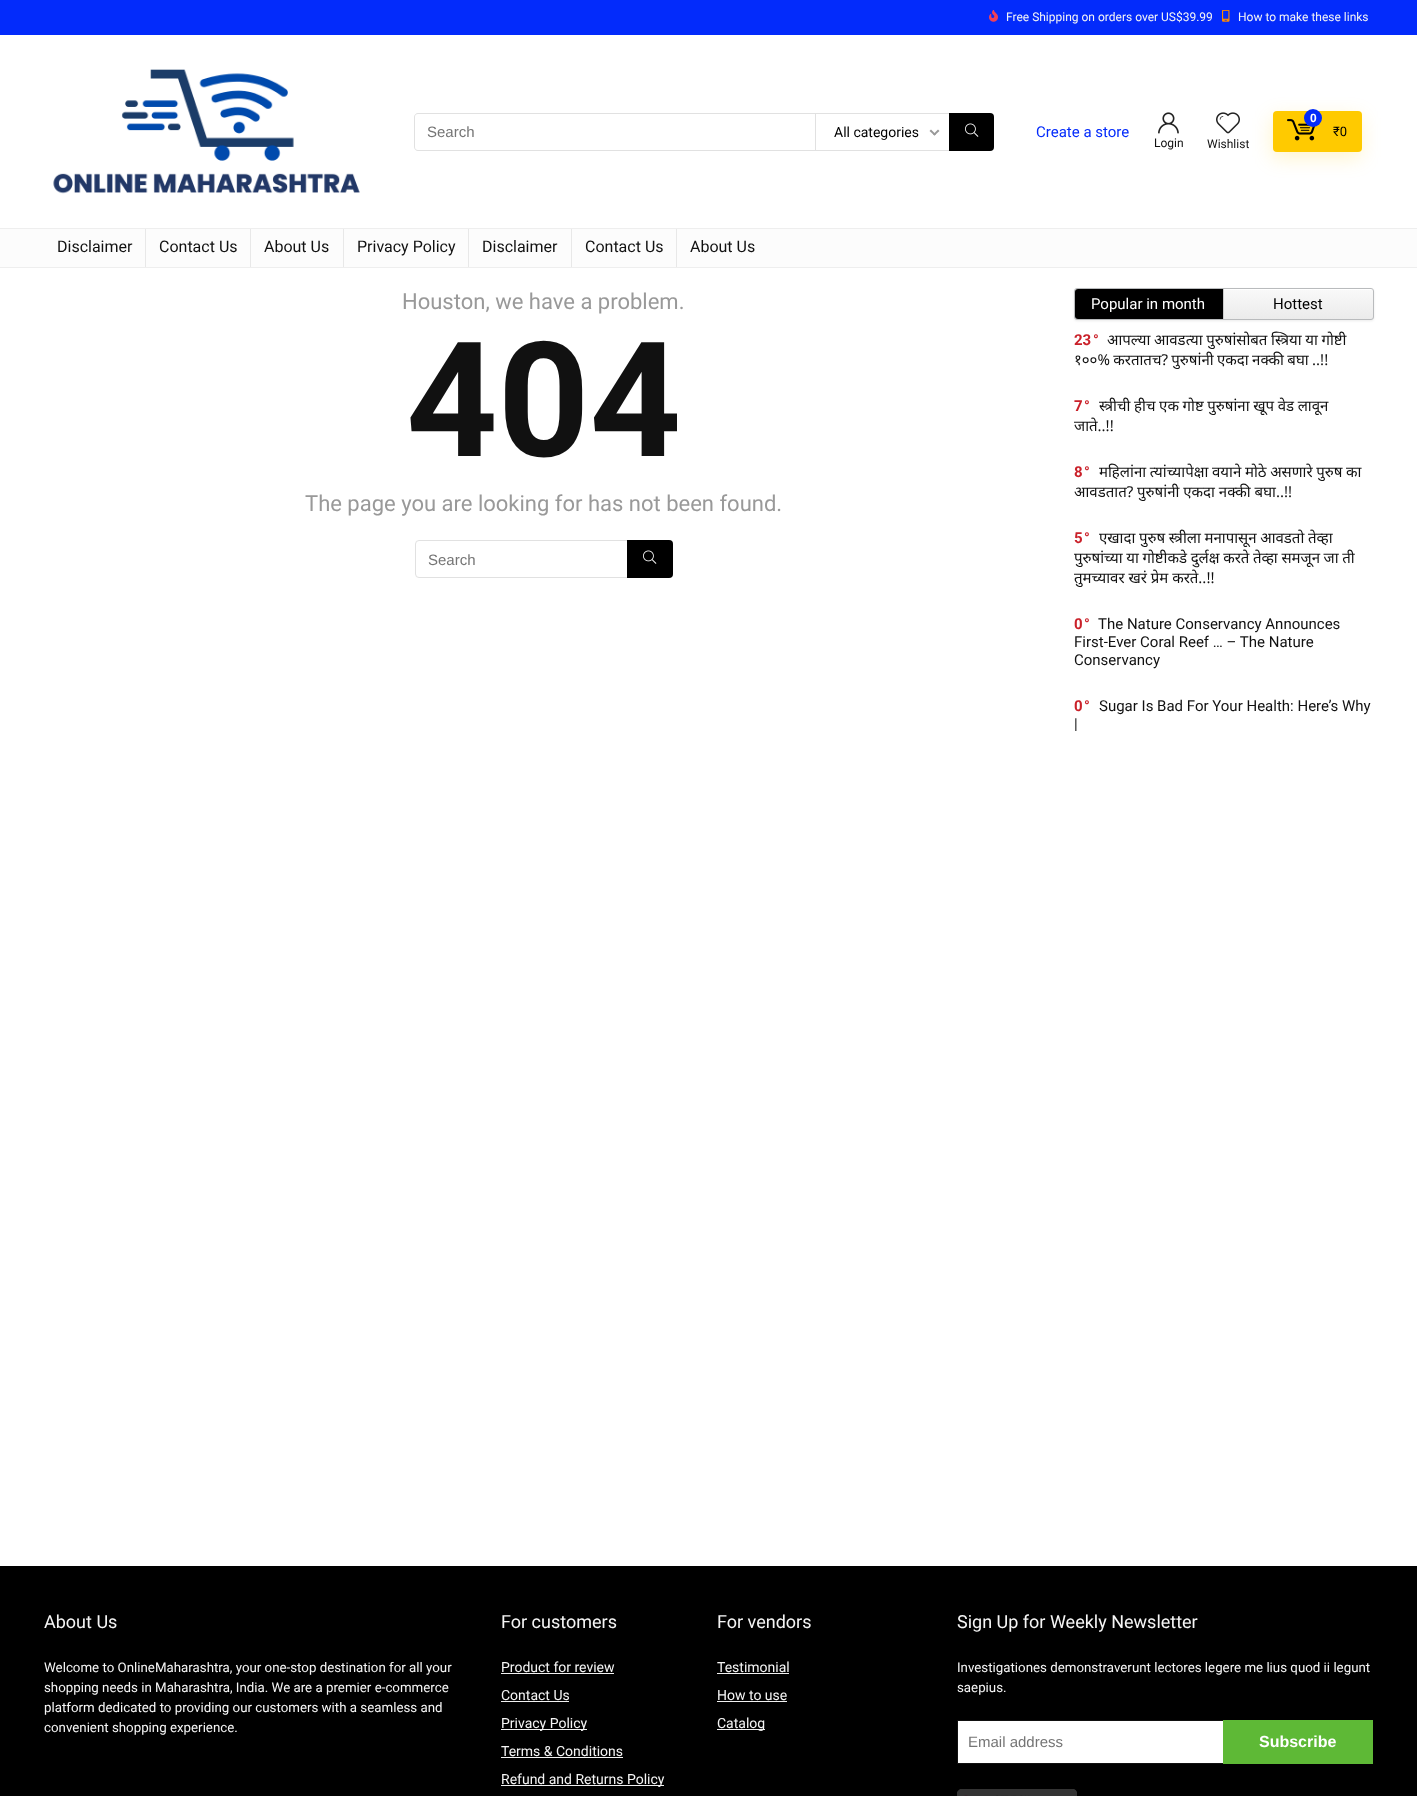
(async () => {
    const canvas = document.querySelector("canvas");
    canvas.width = 1417;
    canvas.height = 1796;
    const context = canvas.getContext("2d");
    context.miterLimit = 4;
    context.fontKerning = "normal";
    function write(s, x, y, font, color) {
        context.font = font;
        context.fillStyle = color;
        context.fillText(s, x, y);
    }
    function block(x, y, w, h, color) {
        context.fillStyle = color;
        context.fillRect(x, y, w, h);
    }
    function card(x, y, w, h, r, color) {
        context.fillStyle = color;
        context.beginPath();
        context.roundRect(x, y, w, h, r);
        context.fill();
    }
    async function photo(src, x, y, w, h) {
        const img = new Image();
        img.src = src;
        await img.decode();
        context.drawImage(img, x, y, w, h);
    }
    let gradient;

    block(0, 0, 1417, 1796, "rgb(255, 255, 255)");
    block(0, 0, 1417, 35, "rgb(3, 43, 251)");
    await photo("media/1.png", 989, 10, 9, 12);
    write("Free Shipping on orders over US$39.99", 1006, 21, "12px Roboto", "rgb(245, 245, 245)");
    await photo("media/2.png", 1222, 10, 8, 12);
    write("How to make these links", 1238, 21, "12px Roboto", "rgb(245, 245, 245)");
    await photo("media/3.png", 53, 69, 307, 125);
    context.fillStyle = "rgb(225, 225, 225)";
    context.beginPath();
    context.moveTo(418, 113);
    context.lineTo(815, 113);
    context.lineTo(815, 151);
    context.lineTo(418, 151);
    context.bezierCurveTo(416, 151, 414, 149, 414, 147);
    context.lineTo(414, 117);
    context.bezierCurveTo(414, 115, 416, 113, 418, 113);
    context.closePath();
    context.moveTo(418, 114);
    context.lineTo(815, 114);
    context.lineTo(815, 150);
    context.lineTo(418, 150);
    context.bezierCurveTo(416, 150, 415, 149, 415, 147);
    context.lineTo(415, 117);
    context.bezierCurveTo(415, 115, 416, 114, 418, 114);
    context.closePath();
    context.fill("evenodd");
    write("Search", 427, 137, "15px Liberation Sans", "rgb(117, 117, 117)");
    block(815, 113, 134, 1, "rgb(225, 225, 225)");
    block(815, 150, 134, 1, "rgb(225, 225, 225)");
    block(815, 113, 1, 38, "rgb(225, 225, 225)");
    write("All categories", 834, 137, "14px Roboto", "rgb(0, 0, 0)");
    context.fillStyle = "rgb(153, 153, 153)";
    context.beginPath();
    context.moveTo(938, 129.5);
    context.lineTo(939.5, 131);
    context.lineTo(934.5, 135.5);
    context.lineTo(933, 134.5);
    context.closePath();
    context.fill();
    context.beginPath();
    context.moveTo(931, 129.5);
    context.lineTo(936, 134.5);
    context.lineTo(934.5, 135.5);
    context.lineTo(929.5, 131);
    context.closePath();
    context.fill();
    context.fillStyle = "rgb(0, 0, 0)";
    context.beginPath();
    context.roundRect(949, 113, 45, 38, [0, 4, 4, 0]);
    context.fill();
    await photo("media/4.png", 965, 123, 14, 14);
    write("Create a store", 1036, 137, "15px Roboto", "rgb(3, 43, 251)");
    context.fillStyle = "rgba(255, 202, 0, 0.2)";
    context.filter = "blur(9.5px)";
    context.beginPath();
    context.roundRect(1272, 117, 89, 41, 4);
    context.fill();
    context.filter = "none";
    card(1273, 111, 89, 41, 4, "rgb(255, 202, 0)");
    await photo("media/5.png", 1287, 119, 28, 22);
    context.fillStyle = "rgb(3, 43, 251)";
    context.beginPath();
    context.arc(1313, 118, 9, 0, Math.PI * 2);
    context.fill();
    write("0", 1310, 122, "bold 12px Liberation Sans", "rgb(255, 255, 255)");
    write("₹0", 1333, 136, "13px Roboto", "rgb(0, 0, 0)");
    await photo("media/6.png", 1158, 112, 21, 22);
    write("Login", 1154, 147, "12px Roboto", "rgb(17, 17, 17)");
    await photo("media/7.png", 1216, 112, 24, 22);
    write("Wishlist", 1207, 148, "12px Roboto", "rgb(17, 17, 17)");
    block(0, 229, 1417, 38, "rgb(252, 252, 252)");
    block(0, 228, 1417, 1, "rgb(238, 238, 238)");
    block(0, 267, 1417, 1, "rgb(238, 238, 238)");
    block(145, 229, 1, 38, "rgb(232, 232, 232)");
    write("Disclaimer", 57, 252, "16px Roboto", "rgb(17, 17, 17)");
    block(250, 229, 1, 38, "rgb(232, 232, 232)");
    write("Contact Us", 159, 252, "16px Roboto", "rgb(17, 17, 17)");
    block(343, 229, 1, 38, "rgb(232, 232, 232)");
    write("About Us", 264, 252, "16px Roboto", "rgb(17, 17, 17)");
    block(468, 229, 1, 38, "rgb(232, 232, 232)");
    write("Privacy Policy", 357, 252, "16px Roboto", "rgb(17, 17, 17)");
    block(571, 229, 1, 38, "rgb(232, 232, 232)");
    write("Disclaimer", 482, 252, "16px Roboto", "rgb(17, 17, 17)");
    block(676, 229, 1, 38, "rgb(232, 232, 232)");
    write("Contact Us", 585, 252, "16px Roboto", "rgb(17, 17, 17)");
    write("About Us", 690, 252, "16px Roboto", "rgb(17, 17, 17)");
    write("Houston, we have a problem.", 402, 309, "22px Roboto", "rgb(153, 153, 153)");
    write("404", 406, 456, "bold 160px Roboto", "rgb(17, 17, 17)");
    write("The page you are looking for has not been found.", 305, 511, "22px Roboto", "rgb(153, 153, 153)");
    context.beginPath();
    context.roundRect(415.5, 540.5, 257, 37, 3.5);
    context.strokeStyle = "rgb(225, 225, 225)";
    context.stroke();
    write("Search", 428, 565, "15px Liberation Sans", "rgb(117, 117, 117)");
    context.fillStyle = "rgb(0, 0, 0)";
    context.beginPath();
    context.roundRect(627, 540, 46, 38, [0, 4, 4, 0]);
    context.fill();
    await photo("media/4.png", 643, 550, 14, 14);
    context.fillStyle = "rgba(0, 0, 0, 0.08)";
    context.filter = "blur(1px)";
    context.beginPath();
    context.roundRect(1074, 289, 300, 32, 3);
    context.fill();
    context.filter = "none";
    context.save();
    context.beginPath();
    context.roundRect(1074, 288, 300, 32, 3);
    context.clip();
    gradient = context.createLinearGradient(1224, 289, 1224, 319);
    gradient.addColorStop(0.03, "rgb(255, 255, 255)");
    gradient.addColorStop(0.03, "rgb(249, 249, 249)");
    gradient.addColorStop(1, "rgb(235, 235, 235)");
    context.fillStyle = gradient;
    context.fillRect(1074, 289, 300, 30);
    context.restore();
    context.beginPath();
    context.roundRect(1074.5, 288.5, 299, 31, 2.5);
    context.strokeStyle = "rgb(185, 187, 189)";
    context.stroke();
    context.fillStyle = "rgb(0, 0, 0)";
    context.beginPath();
    context.roundRect(1075, 289, 149, 30, [3, 0, 0, 3]);
    context.fill();
    block(1223, 289, 1, 30, "rgb(204, 204, 204)");
    write("Popular in month", 1091, 309, "15px Roboto", "rgb(255, 255, 255)");
    write("Hottest", 1273, 309, "15px Roboto", "rgb(0, 0, 0)");
    write("23", 1074, 345, "bold 15px Roboto", "rgb(202, 33, 42)");
    write("°", 1093, 345, "bold 15px Roboto", "rgb(202, 33, 42)");
    context.wordSpacing = "-0.25px";
    write("आपल्या आवडत्या पुरुषांसोबत स्त्रिया या गोष्टी", 1107, 345, "15px Noto Sans", "rgb(17, 17, 17)");
    context.wordSpacing = "-0.5px";
    write("१००% करतातच? पुरुषांनी एकदा नक्की बघा ..!!", 1074, 365, "15px Noto Sans", "rgb(17, 17, 17)");
    context.wordSpacing = "0px";
    write("7", 1074, 411, "bold 15px Roboto", "rgb(202, 33, 42)");
    write("°", 1084, 411, "bold 15px Roboto", "rgb(202, 33, 42)");
    context.wordSpacing = "-0.25px";
    write("स्त्रीची हीच एक गोष्ट पुरुषांना खूप वेड लावून", 1099, 411, "15px Noto Sans", "rgb(17, 17, 17)");
    context.wordSpacing = "0px";
    write("जाते..!!", 1074, 431, "15px Noto Sans", "rgb(17, 17, 17)");
    write("8", 1074, 477, "bold 15px Roboto", "rgb(202, 33, 42)");
    write("°", 1084, 477, "bold 15px Roboto", "rgb(202, 33, 42)");
    context.wordSpacing = "-0.25px";
    write("महिलांना त्यांच्यापेक्षा वयाने मोठे असणारे पुरुष का", 1099, 477, "15px Noto Sans", "rgb(17, 17, 17)");
    context.wordSpacing = "0px";
    write("आवडतात? पुरुषांनी एकदा नक्की बघा..!!", 1074, 497, "15px Noto Sans", "rgb(17, 17, 17)");
    write("5", 1074, 543, "bold 15px Roboto", "rgb(202, 33, 42)");
    write("°", 1084, 543, "bold 15px Roboto", "rgb(202, 33, 42)");
    context.wordSpacing = "-0.25px";
    write("एखादा पुरुष स्त्रीला मनापासून आवडतो तेव्हा", 1099, 543, "15px Noto Sans", "rgb(17, 17, 17)");
    context.save();
    context.beginPath();
    context.rect(1074, 526, 300, 86);
    context.clip();
    write("पुरुषांच्या या गोष्टीकडे दुर्लक्ष करते तेव्हा समजून जा ती", 1074, 563, "15px Noto Sans", "rgb(17, 17, 17)");
    context.wordSpacing = "0px";
    write("तुमच्यावर खरं प्रेम करते..!!", 1074, 583, "15px Noto Sans", "rgb(17, 17, 17)");
    context.restore();
    context.wordSpacing = "0px";
    write("0", 1074, 629, "bold 15px Roboto", "rgb(202, 33, 42)");
    write("°", 1084, 629, "bold 15px Roboto", "rgb(202, 33, 42)");
    write("The Nature Conservancy Announces", 1098, 629, "15px Roboto", "rgb(17, 17, 17)");
    write("First-Ever Coral Reef … – The Nature", 1074, 647, "15px Roboto", "rgb(17, 17, 17)");
    write("Conservancy", 1074, 665, "15px Roboto", "rgb(17, 17, 17)");
    write("0", 1074, 711, "bold 15px Roboto", "rgb(202, 33, 42)");
    write("°", 1084, 711, "bold 15px Roboto", "rgb(202, 33, 42)");
    write("Sugar Is Bad For Your Health: Here’s Why", 1099, 711, "15px Roboto", "rgb(17, 17, 17)");
    write("|", 1074, 729, "15px Roboto", "rgb(17, 17, 17)");
    block(0, 1566, 1417, 230, "rgb(0, 0, 0)");
    write("About Us", 44, 1628, "18px Roboto", "rgb(245, 245, 245)");
    write("Welcome to OnlineMaharashtra, your one-stop destination for all your", 44, 1672, "13.3px Roboto", "rgb(245, 245, 245)");
    write("shopping needs in Maharashtra, India. We are a premier e-commerce", 44, 1692, "13.3px Roboto", "rgb(245, 245, 245)");
    write("platform dedicated to providing our customers with a seamless and", 44, 1712, "13.3px Roboto", "rgb(245, 245, 245)");
    write("convenient shopping experience.", 44, 1732, "13.3px Roboto", "rgb(245, 245, 245)");
    write("For customers", 501, 1628, "18px Roboto", "rgb(245, 245, 245)");
    write("Product for review", 501, 1672, "14px Roboto", "rgb(245, 245, 245)");
    block(501, 1673, 113, 1, "rgb(241, 241, 241)");
    write("Contact Us", 501, 1700, "14px Roboto", "rgb(245, 245, 245)");
    block(501, 1701, 68, 1, "rgb(241, 241, 241)");
    block(501, 1729, 86, 1, "rgb(241, 241, 241)");
    write("Privacy Policy", 501, 1728, "14px Roboto", "rgb(245, 245, 245)");
    write("Terms & Conditions", 501, 1756, "14px Roboto", "rgb(245, 245, 245)");
    block(501, 1757, 122, 1, "rgb(241, 241, 241)");
    block(501, 1785, 163, 1, "rgb(241, 241, 241)");
    write("Refund and Returns Policy", 501, 1784, "14px Roboto", "rgb(245, 245, 245)");
    write("For vendors", 717, 1628, "18px Roboto", "rgb(245, 245, 245)");
    write("Testimonial", 717, 1672, "14px Roboto", "rgb(245, 245, 245)");
    block(717, 1673, 72, 1, "rgb(241, 241, 241)");
    write("How to use", 717, 1700, "14px Roboto", "rgb(245, 245, 245)");
    block(717, 1701, 70, 1, "rgb(241, 241, 241)");
    block(717, 1729, 48, 1, "rgb(241, 241, 241)");
    write("Catalog", 717, 1728, "14px Roboto", "rgb(245, 245, 245)");
    write("Sign Up for Weekly Newsletter", 957, 1628, "18px Roboto", "rgb(245, 245, 245)");
    write("Investigationes demonstraverunt lectores legere me lius quod ii legunt", 957, 1672, "13.3px Roboto", "rgb(245, 245, 245)");
    write("saepius.", 957, 1692, "13.3px Roboto", "rgb(245, 245, 245)");
    block(958, 1721, 265, 42, "rgb(255, 255, 255)");
    context.strokeStyle = "rgb(17, 17, 17)";
    context.strokeRect(957.5, 1720.5, 415, 43);
    write("Email address", 968, 1747, "15px Liberation Sans", "rgb(117, 117, 117)");
    block(1223, 1720, 150, 44, "rgb(94, 185, 54)");
    write("Subscribe", 1259, 1747, "bold 16px Liberation Sans", "rgb(255, 255, 255)");
    await photo("media/8.png", 957, 1789, 120, 7);
})();
